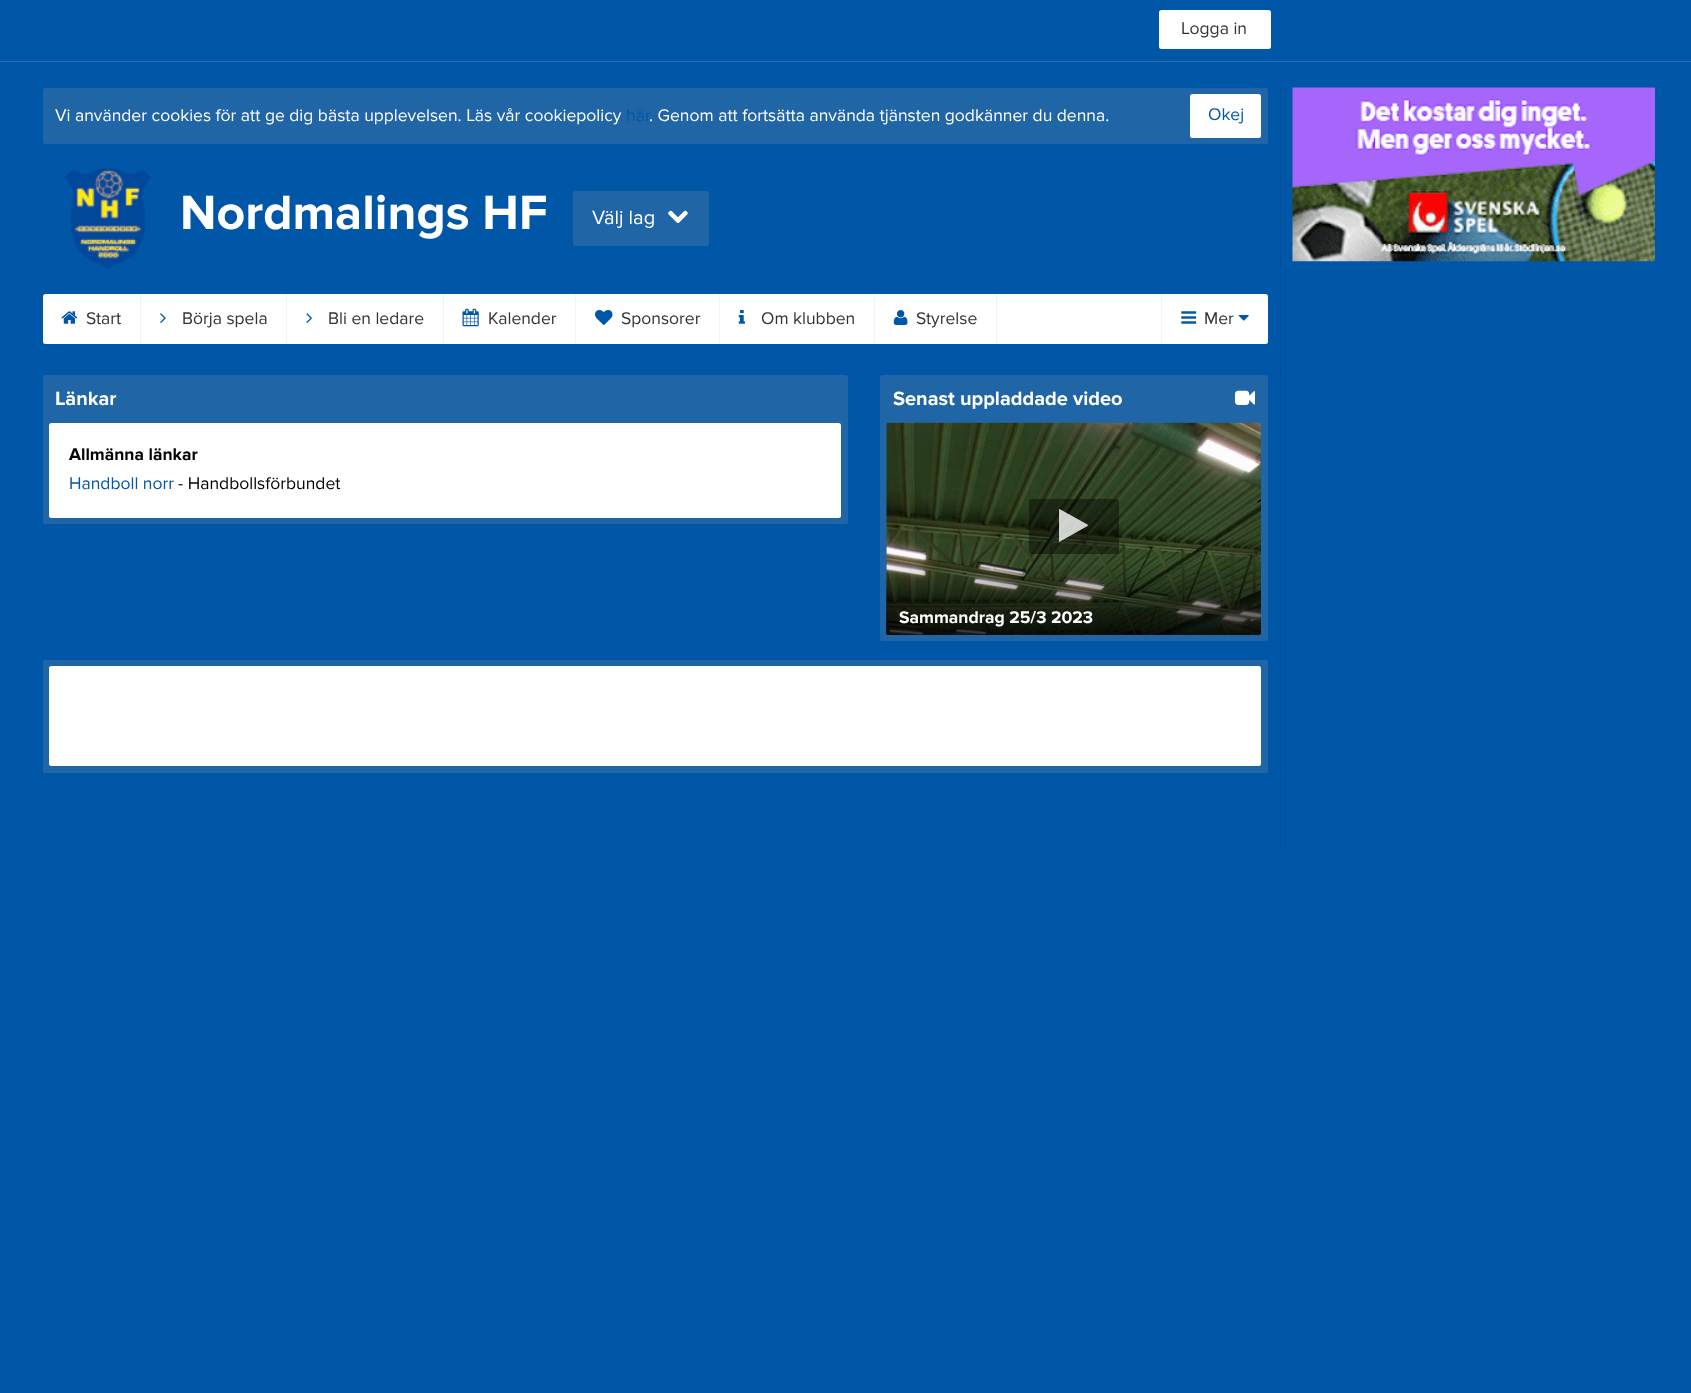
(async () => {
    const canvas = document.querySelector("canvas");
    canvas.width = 1691;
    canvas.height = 1393;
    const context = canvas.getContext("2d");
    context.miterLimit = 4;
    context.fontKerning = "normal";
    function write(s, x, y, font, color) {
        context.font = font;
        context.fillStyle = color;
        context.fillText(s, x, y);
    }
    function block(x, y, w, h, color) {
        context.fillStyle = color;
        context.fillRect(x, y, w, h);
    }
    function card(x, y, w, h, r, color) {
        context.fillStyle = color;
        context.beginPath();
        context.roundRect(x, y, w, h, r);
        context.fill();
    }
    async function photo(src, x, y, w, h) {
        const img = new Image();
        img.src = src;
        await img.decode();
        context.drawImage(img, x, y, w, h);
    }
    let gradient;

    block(0, 0, 1691, 1393, "rgb(0, 87, 168)");
    block(0, 61, 1691, 1, "rgb(38, 112, 181)");
    card(1159, 10, 112, 39, 2.5, "rgb(255, 255, 255)");
    write("Logga in", 1181, 34, "17.5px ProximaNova", "rgb(51, 51, 51)");
    card(43, 88, 1225, 56, 2.5, "rgb(32, 101, 166)");
    write("Vi använder cookies för att ge dig bästa upplevelsen. Läs vår cookiepolicy", 55, 121, "17.5px ProximaNova", "rgb(255, 255, 255)");
    write("här", 626, 121, "17.5px ProximaNova", "rgb(0, 87, 168)");
    write(". Genom att fortsätta använda tjänsten godkänner du denna.", 649, 121, "17.5px ProximaNova", "rgb(255, 255, 255)");
    card(1190, 94, 71, 44, 2.5, "rgb(255, 255, 255)");
    write("Okej", 1208, 120, "17.5px ProximaNova", "rgb(0, 87, 168)");
    await photo("media/1.png", 65, 168, 86, 101);
    write("Nordmalings HF", 180, 229, "bold 50px ProximaNova", "rgb(255, 255, 255)");
    card(573, 191, 136, 55, 2.5, "rgb(32, 101, 166)");
    write("Välj lag", 592, 224, "20px ProximaNova", "rgb(255, 255, 255)");
    await photo("media/2.png", 668, 210, 20, 13);
    card(43, 294, 1225, 50, 2.5, "rgb(255, 255, 255)");
    block(140, 294, 1, 50, "rgb(243, 243, 243)");
    await photo("media/3.png", 61, 311, 17, 13);
    write("Start", 86, 324, "17.5px ProximaNova", "rgb(51, 51, 51)");
    block(286, 294, 1, 50, "rgb(243, 243, 243)");
    await photo("media/4.png", 160, 313, 6, 10);
    write("Börja spela", 182, 324, "17.5px ProximaNova", "rgb(51, 51, 51)");
    block(443, 294, 1, 50, "rgb(243, 243, 243)");
    await photo("media/5.png", 306, 313, 6, 10);
    write("Bli en ledare", 328, 324, "17.5px ProximaNova", "rgb(51, 51, 51)");
    block(575, 294, 1, 50, "rgb(243, 243, 243)");
    await photo("media/6.png", 462, 308, 17, 19);
    write("Kalender", 488, 324, "17.5px ProximaNova", "rgb(51, 51, 51)");
    block(719, 294, 1, 50, "rgb(243, 243, 243)");
    await photo("media/7.png", 595, 310, 18, 15);
    write("Sponsorer", 621, 324, "17.5px ProximaNova", "rgb(51, 51, 51)");
    block(874, 294, 1, 50, "rgb(243, 243, 243)");
    await photo("media/8.png", 738, 310, 7, 14);
    write("Om klubben", 761, 324, "17.5px ProximaNova", "rgb(51, 51, 51)");
    block(996, 294, 1, 50, "rgb(243, 243, 243)");
    await photo("media/9.png", 893, 310, 15, 15);
    write("Styrelse", 916, 324, "17.5px ProximaNova", "rgb(51, 51, 51)");
    block(1161, 294, 1, 50, "rgb(243, 243, 243)");
    await photo("media/10.png", 1181, 311, 16, 13);
    write("Mer", 1204, 324, "17.5px ProximaNova", "rgb(51, 51, 51)");
    await photo("media/11.png", 1238, 315, 11, 6);
    card(43, 375, 805, 149, 2.5, "rgb(32, 101, 166)");
    write("Länkar", 55, 405, "bold 20px ProximaNova", "rgb(255, 255, 255)");
    card(49, 423, 792, 95, 2.5, "rgb(255, 255, 255)");
    write("Allmänna länkar", 69, 460, "bold 17.5px ProximaNova", "rgb(0, 0, 0)");
    write("Handboll norr", 69, 489, "17.5px ProximaNova", "rgb(0, 87, 168)");
    write("- Handbollsförbundet", 178, 489, "17.5px ProximaNova", "rgb(0, 0, 0)");
    card(880, 375, 388, 266, 2.5, "rgb(32, 101, 166)");
    write("Senast uppladdade video", 893, 405, "bold 20px ProximaNova", "rgb(255, 255, 255)");
    await photo("media/12.png", 1235, 390, 20, 15);
    await photo("media/13.png", 886, 422, 375, 213);
    card(1029, 499, 90, 55, 2.5, "rgba(0, 0, 0, 0.4)");
    context.fillStyle = "rgba(255, 255, 255, 0.8)";
    context.beginPath();
    context.moveTo(1087.5, 526);
    context.lineTo(1064.5, 539);
    context.bezierCurveTo(1064, 539, 1059.5, 542.5, 1059, 541.5);
    context.lineTo(1059, 509.5);
    context.lineTo(1059.5, 509);
    context.lineTo(1087.5, 524.5);
    context.lineTo(1088, 525.5);
    context.closePath();
    context.fill();
    gradient = context.createLinearGradient(1074, 545, 1074, 635);
    gradient.addColorStop(0.2, "rgba(0, 0, 0, 0)");
    gradient.addColorStop(1, "rgba(0, 0, 0, 0.8)");
    context.fillStyle = gradient;
    context.beginPath();
    context.roundRect(886, 545, 375, 90, [0, 0, 2.5, 2.5]);
    context.fill();
    write("Sammandrag 25/3 2023", 899, 623, "bold 17.5px ProximaNova", "rgb(255, 255, 255)");
    card(43, 660, 1225, 113, 2.5, "rgb(32, 101, 166)");
    card(49, 666, 1212, 100, 2.5, "rgb(255, 255, 255)");
    block(1280, 88, 1, 760, "rgb(0, 78, 151)");
    await photo("media/14.png", 1292, 87, 363, 175);
})();
